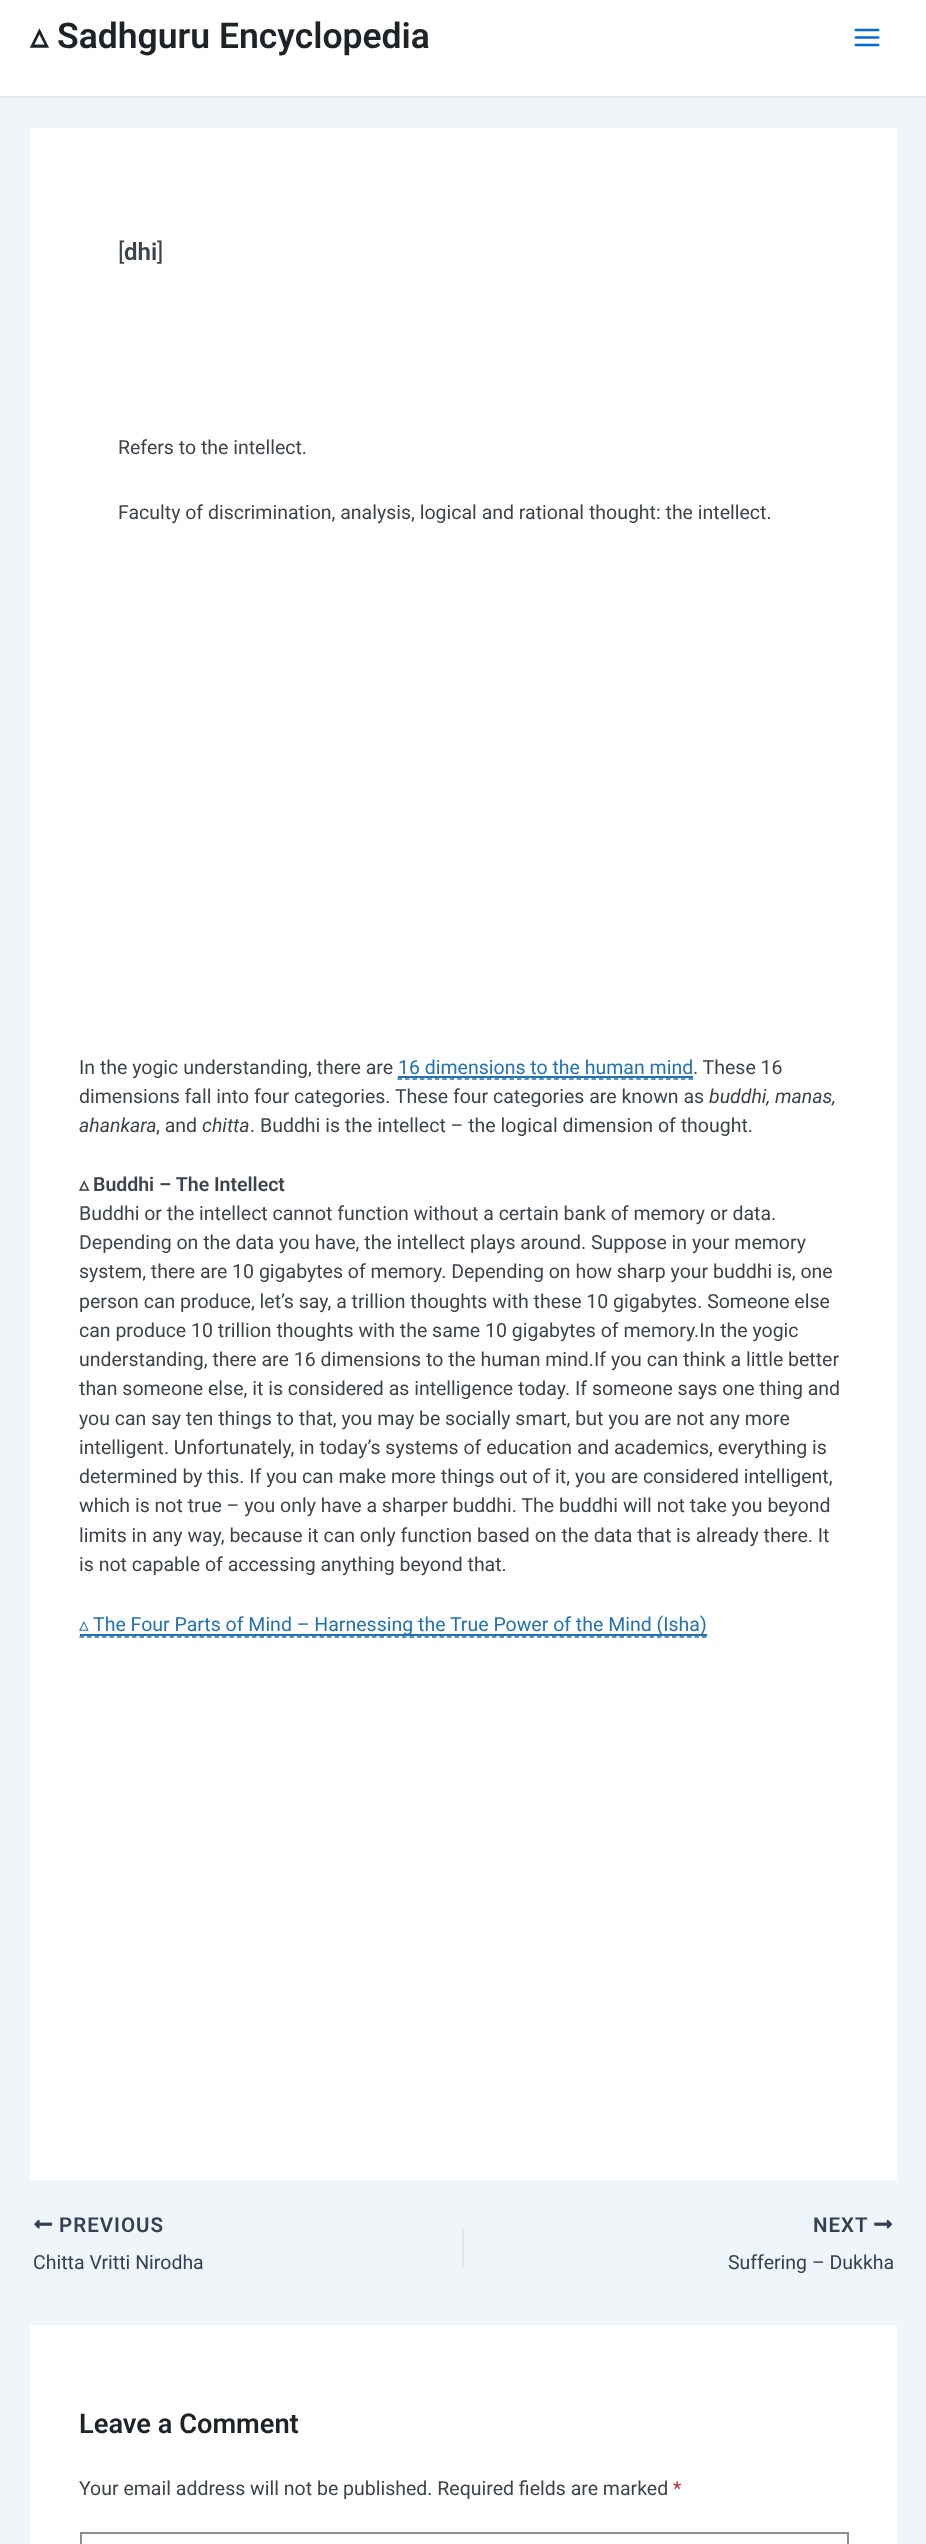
(async () => {
    const canvas = document.querySelector("canvas");
    canvas.width = 926;
    canvas.height = 2544;
    const context = canvas.getContext("2d");
    context.miterLimit = 4;
    context.fontKerning = "normal";
    function write(s, x, y, font, color) {
        context.font = font;
        context.fillStyle = color;
        context.fillText(s, x, y);
    }
    function block(x, y, w, h, color) {
        context.fillStyle = color;
        context.fillRect(x, y, w, h);
    }
    async function photo(src, x, y, w, h) {
        const img = new Image();
        img.src = src;
        await img.decode();
        context.drawImage(img, x, y, w, h);
    }

    block(0, 0, 926, 2544, "rgb(240, 245, 250)");
    block(0, 0, 926, 96, "rgb(255, 255, 255)");
    block(0, 96, 926, 2, "rgb(234, 234, 234)");
    write("▵", 30, 48, "bold 35.5px DejaVu Sans", "rgb(29, 35, 39)");
    write("Sadhguru Encyclopedia", 57, 48, "600 35.5px Roboto", "rgb(29, 35, 39)");
    await photo("media/1.png", 854, 28, 26, 19);
    block(30, 128, 867, 2052, "rgb(255, 255, 255)");
    write("[", 118, 260, "24px Roboto", "rgb(60, 67, 74)");
    write("dhi", 124, 260, "600 24px Roboto", "rgb(60, 67, 74)");
    write("]", 157, 260, "24px Roboto", "rgb(60, 67, 74)");
    write("Refers to the intellect.", 118, 454, "19.5px Roboto", "rgb(60, 67, 74)");
    write("Faculty of discrimination, analysis, logical and rational thought: the intellect.", 118, 519, "19.5px Roboto", "rgb(60, 67, 74)");
    write("In the yogic understanding, there are", 79, 1074, "19.5px Roboto", "rgb(60, 67, 74)");
    write("16 dimensions to the human mind", 398, 1074, "19.5px Roboto", "rgb(34, 113, 177)");
    context.beginPath();
    context.moveTo(397.5, 1079);
    context.lineTo(693, 1079);
    context.strokeStyle = "rgb(34, 113, 177)";
    context.lineWidth = 1.5;
    context.setLineDash([4.5, 2.96]);
    context.stroke();
    block(398, 1076, 295, 2, "rgb(34, 113, 177)");
    write(". These 16", 693, 1074, "19.5px Roboto", "rgb(60, 67, 74)");
    write("dimensions fall into four categories. These four categories are known as", 79, 1103, "19.5px Roboto", "rgb(60, 67, 74)");
    write("buddhi, manas,", 709, 1103, "italic 19.5px Roboto", "rgb(60, 67, 74)");
    write("ahankara", 79, 1132, "italic 19.5px Roboto", "rgb(60, 67, 74)");
    write(", and", 156, 1132, "19.5px Roboto", "rgb(60, 67, 74)");
    write("chitta", 202, 1132, "italic 19.5px Roboto", "rgb(60, 67, 74)");
    write(". Buddhi is the intellect – the logical dimension of thought.", 250, 1132, "19.5px Roboto", "rgb(60, 67, 74)");
    write("▵", 79, 1191, "bold 19.5px DejaVu Sans", "rgb(60, 67, 74)");
    write("Buddhi – The Intellect", 93, 1191, "600 19.5px Roboto", "rgb(60, 67, 74)");
    write("Buddhi or the intellect cannot function without a certain bank of memory or data.", 79, 1220, "19.5px Roboto", "rgb(60, 67, 74)");
    write("Depending on the data you have, the intellect plays around. Suppose in your memory", 79, 1249, "19.5px Roboto", "rgb(60, 67, 74)");
    write("system, there are 10 gigabytes of memory. Depending on how sharp your buddhi is, one", 79, 1278, "19.5px Roboto", "rgb(60, 67, 74)");
    write("person can produce, let’s say, a trillion thoughts with these 10 gigabytes. Someone else", 79, 1308, "19.5px Roboto", "rgb(60, 67, 74)");
    write("can produce 10 trillion thoughts with the same 10 gigabytes of memory.In the yogic", 79, 1337, "19.5px Roboto", "rgb(60, 67, 74)");
    write("understanding, there are 16 dimensions to the human mind.If you can think a little better", 79, 1366, "19.5px Roboto", "rgb(60, 67, 74)");
    write("than someone else, it is considered as intelligence today. If someone says one thing and", 79, 1395, "19.5px Roboto", "rgb(60, 67, 74)");
    write("you can say ten things to that, you may be socially smart, but you are not any more", 79, 1425, "19.5px Roboto", "rgb(60, 67, 74)");
    write("intelligent. Unfortunately, in today’s systems of education and academics, everything is", 79, 1454, "19.5px Roboto", "rgb(60, 67, 74)");
    write("determined by this. If you can make more things out of it, you are considered intelligent,", 79, 1483, "19.5px Roboto", "rgb(60, 67, 74)");
    write("which is not true – you only have a sharper buddhi. The buddhi will not take you beyond", 79, 1512, "19.5px Roboto", "rgb(60, 67, 74)");
    write("limits in any way, because it can only function based on the data that is already there. It", 79, 1542, "19.5px Roboto", "rgb(60, 67, 74)");
    write("is not capable of accessing anything beyond that.", 79, 1571, "19.5px Roboto", "rgb(60, 67, 74)");
    write("▵", 79, 1631, "19.5px DejaVu Sans", "rgb(34, 113, 177)");
    context.beginPath();
    context.moveTo(79.5, 1637);
    context.lineTo(706.5, 1637);
    context.setLineDash([4.5, 3]);
    context.stroke();
    block(80, 1634, 627, 2, "rgb(34, 113, 177)");
    write("The Four Parts of Mind – Harnessing the True Power of the Mind (Isha)", 93, 1631, "19.5px Roboto", "rgb(34, 113, 177)");
    await photo("media/2.png", 34, 2219, 19, 10);
    context.letterSpacing = "1px";
    write("PREVIOUS", 59, 2232, "600 20.5px Roboto", "rgb(51, 65, 85)");
    context.letterSpacing = "0px";
    write("Chitta Vritti Nirodha", 33, 2269, "19.5px Roboto", "rgb(51, 65, 85)");
    block(462, 2229, 2, 38, "rgb(225, 232, 237)");
    context.letterSpacing = "1px";
    write("NEXT", 813, 2232, "600 20.5px Roboto", "rgb(51, 65, 85)");
    await photo("media/3.png", 874, 2219, 19, 10);
    context.letterSpacing = "0px";
    write("Suffering – Dukkha", 728, 2269, "19.5px Roboto", "rgb(51, 65, 85)");
    block(30, 2325, 867, 219, "rgb(255, 255, 255)");
    write("Leave a Comment", 79, 2433, "600 27.25px Roboto", "rgb(29, 35, 39)");
    write("Your email address will not be published. Required fields are marked", 79, 2495, "19.5px Roboto", "rgb(60, 67, 74)");
    write("*", 673, 2495, "19.5px Roboto", "rgb(179, 45, 46)");
    context.strokeStyle = "rgb(140, 143, 148)";
    context.lineWidth = 2;
    context.setLineDash([]);
    context.strokeRect(81, 2533, 767, 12);
})();
